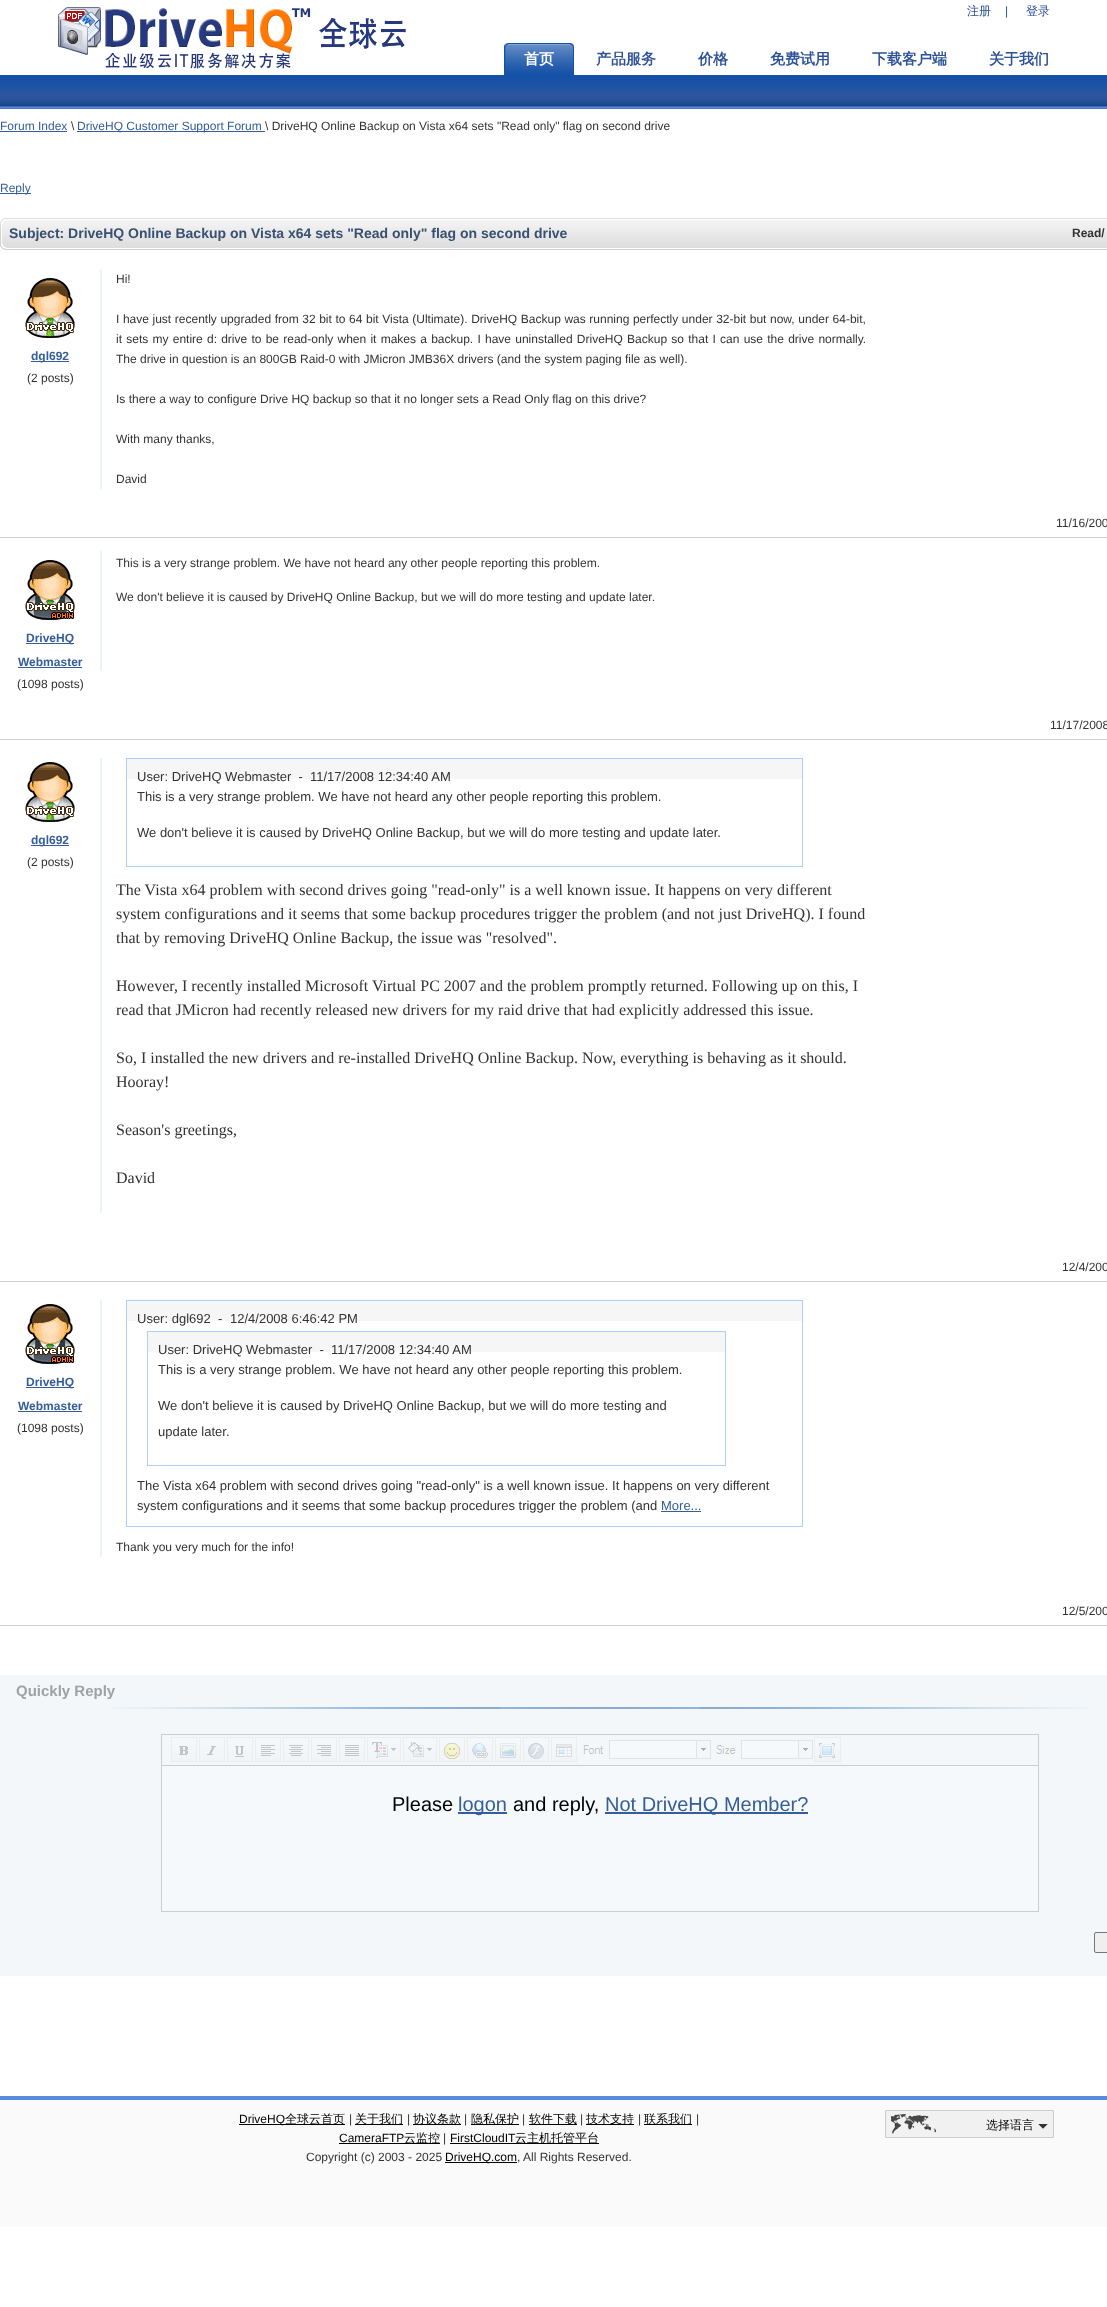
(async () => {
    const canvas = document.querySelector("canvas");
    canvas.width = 1107;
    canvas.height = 2307;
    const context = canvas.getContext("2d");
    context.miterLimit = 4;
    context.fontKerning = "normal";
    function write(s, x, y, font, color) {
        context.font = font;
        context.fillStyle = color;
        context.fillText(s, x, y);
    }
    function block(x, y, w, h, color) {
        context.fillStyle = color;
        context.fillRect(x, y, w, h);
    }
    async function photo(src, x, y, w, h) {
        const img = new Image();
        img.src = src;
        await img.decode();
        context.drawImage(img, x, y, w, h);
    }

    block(0, 0, 1107, 2307, "rgb(255, 255, 255)");
    await photo("media/1.png", 0, 75, 1107, 34);
    await photo("media/2.png", 58, 7, 348, 62);
    write("注册", 967, 15, "500 12px WenQuanYi Zen Hei", "rgb(46, 82, 153)");
    write("|", 1005, 15, "12px Liberation Sans", "rgb(46, 82, 153)");
    write("登录", 1026, 15, "500 12px WenQuanYi Zen Hei", "rgb(46, 82, 153)");
    await photo("media/3.png", 504, 43, 4, 32);
    await photo("media/4.png", 508, 43, 66, 32);
    write("首页", 524, 64, "bold 15px WenQuanYi Zen Hei", "rgb(255, 255, 255)");
    write("产品服务", 596, 64, "bold 15px WenQuanYi Zen Hei", "rgb(46, 82, 153)");
    write("价格", 698, 64, "bold 15px WenQuanYi Zen Hei", "rgb(46, 82, 153)");
    write("免费试用", 770, 64, "bold 15px WenQuanYi Zen Hei", "rgb(46, 82, 153)");
    write("下载客户端", 872, 64, "bold 15px WenQuanYi Zen Hei", "rgb(46, 82, 153)");
    write("关于我们", 989, 64, "bold 15px WenQuanYi Zen Hei", "rgb(46, 82, 153)");
    write("Forum Index", 0, 130, "12px Liberation Sans", "rgb(52, 93, 154)");
    block(0, 131, 67, 1, "rgb(52, 93, 154)");
    write("\\", 71, 130, "12px Liberation Sans", "rgb(51, 51, 51)");
    block(77, 131, 188, 1, "rgb(52, 93, 154)");
    write("DriveHQ Customer Support Forum", 77, 130, "12px Liberation Sans", "rgb(52, 93, 154)");
    write("\\ DriveHQ Online Backup on Vista x64 sets \"Read only\" flag on second drive", 265, 130, "12px Liberation Sans", "rgb(51, 51, 51)");
    block(0, 193, 31, 1, "rgb(52, 93, 154)");
    write("Reply", 0, 192, "12px Liberation Sans", "rgb(52, 93, 154)");
    await photo("media/5.png", 0, 218, 9, 32);
    await photo("media/6.png", 9, 218, 1098, 32);
    write("Subject: DriveHQ Online Backup on Vista x64 sets \"Read only\" flag on second drive", 9, 238, "bold 14px Liberation Sans", "rgb(56, 80, 113)");
    write("Read/", 1072, 237, "bold 12px Liberation Sans", "rgb(51, 51, 51)");
    await photo("media/7.png", 25, 278, 50, 60);
    block(31, 361, 38, 1, "rgb(52, 93, 154)");
    write("dgl692", 31, 360, "bold 12px Liberation Sans", "rgb(52, 93, 154)");
    write("(2 posts)", 27, 382, "12px Liberation Sans", "rgb(51, 51, 51)");
    await photo("media/8.png", 100, 269, 2, 220);
    write("Hi!", 116, 283, "12px Liberation Sans", "rgb(51, 51, 51)");
    context.wordSpacing = "0.25px";
    write("I have just recently upgraded from 32 bit to 64 bit Vista (Ultimate). DriveHQ Backup was running perfectly under 32-bit but now, under 64-bit,", 116, 323, "12px Liberation Sans", "rgb(51, 51, 51)");
    context.wordSpacing = "0.9px";
    write("it sets my entire d: drive to be read-only when it makes a backup. I have uninstalled DriveHQ Backup so that I can use the drive normally.", 116, 343, "12px Liberation Sans", "rgb(51, 51, 51)");
    context.wordSpacing = "0px";
    write("The drive in question is an 800GB Raid-0 with JMicron JMB36X drivers (and the system paging file as well).", 116, 363, "12px Liberation Sans", "rgb(51, 51, 51)");
    write("Is there a way to configure Drive HQ backup so that it no longer sets a Read Only flag on this drive?", 116, 403, "12px Liberation Sans", "rgb(51, 51, 51)");
    write("With many thanks,", 116, 443, "12px Liberation Sans", "rgb(51, 51, 51)");
    write("David", 116, 483, "12px Liberation Sans", "rgb(51, 51, 51)");
    write("11/16/200", 1056, 527, "12px Liberation Sans", "rgb(51, 51, 51)");
    block(0, 537, 1107, 1, "rgb(209, 209, 209)");
    await photo("media/9.png", 100, 551, 2, 120);
    write("This is a very strange problem. We have not heard any other people reporting this problem.", 116, 567, "12px Liberation Sans", "rgb(51, 51, 51)");
    write("We don't believe it is caused by DriveHQ Online Backup, but we will do more testing and update later.", 116, 601, "12px Liberation Sans", "rgb(51, 51, 51)");
    await photo("media/10.png", 25, 560, 50, 60);
    block(26, 643, 48, 1, "rgb(52, 93, 154)");
    write("DriveHQ", 26, 642, "bold 12px Liberation Sans", "rgb(52, 93, 154)");
    write("Webmaster", 18, 666, "bold 12px Liberation Sans", "rgb(52, 93, 154)");
    block(18, 667, 64, 1, "rgb(52, 93, 154)");
    write("(1098 posts)", 17, 688, "12px Liberation Sans", "rgb(51, 51, 51)");
    write("11/17/2008", 1050, 729, "12px Liberation Sans", "rgb(51, 51, 51)");
    block(0, 739, 1107, 1, "rgb(209, 209, 209)");
    await photo("media/7.png", 25, 762, 50, 60);
    block(31, 845, 38, 1, "rgb(52, 93, 154)");
    write("dgl692", 31, 844, "bold 12px Liberation Sans", "rgb(52, 93, 154)");
    write("(2 posts)", 27, 866, "12px Liberation Sans", "rgb(51, 51, 51)");
    await photo("media/11.png", 100, 758, 2, 455);
    context.strokeStyle = "rgb(176, 207, 246)";
    context.strokeRect(126.5, 758.5, 676, 108);
    block(127, 759, 675, 20, "rgb(246, 246, 246)");
    write("User: DriveHQ Webmaster  -", 137, 781, "13px Liberation Sans", "rgb(51, 51, 51)");
    write("11/17/2008 12:34:40 AM", 310, 781, "13px Liberation Sans", "rgb(51, 51, 51)");
    write("This is a very strange problem. We have not heard any other people reporting this problem.", 137, 801, "13px Liberation Sans", "rgb(51, 51, 51)");
    write("We don't believe it is caused by DriveHQ Online Backup, but we will do more testing and update later.", 137, 837, "13px Liberation Sans", "rgb(51, 51, 51)");
    write("The Vista x64 problem with second drives going \"read-only\" is a well known issue. It happens on very different", 116, 895, "16px Liberation Serif", "rgb(51, 51, 51)");
    write("system configurations and it seems that some backup procedures trigger the problem (and not just DriveHQ). I found", 116, 919, "16px Liberation Serif", "rgb(51, 51, 51)");
    write("that by removing DriveHQ Online Backup, the issue was \"resolved\".", 116, 943, "16px Liberation Serif", "rgb(51, 51, 51)");
    write("However, I recently installed Microsoft Virtual PC 2007 and the problem promptly returned. Following up on this, I", 116, 991, "16px Liberation Serif", "rgb(51, 51, 51)");
    write("read that JMicron had recently released new drivers for my raid drive that had explicitly addressed this issue.", 116, 1015, "16px Liberation Serif", "rgb(51, 51, 51)");
    write("So, I installed the new drivers and re-installed DriveHQ Online Backup. Now, everything is behaving as it should.", 116, 1063, "16px Liberation Serif", "rgb(51, 51, 51)");
    write("Hooray!", 116, 1087, "16px Liberation Serif", "rgb(51, 51, 51)");
    write("Season's greetings,", 116, 1135, "16px Liberation Serif", "rgb(51, 51, 51)");
    write("David", 116, 1183, "16px Liberation Serif", "rgb(51, 51, 51)");
    write("12/4/200", 1062, 1271, "12px Liberation Sans", "rgb(51, 51, 51)");
    block(0, 1281, 1107, 1, "rgb(209, 209, 209)");
    await photo("media/10.png", 25, 1304, 50, 60);
    block(26, 1387, 48, 1, "rgb(52, 93, 154)");
    write("DriveHQ", 26, 1386, "bold 12px Liberation Sans", "rgb(52, 93, 154)");
    write("Webmaster", 18, 1410, "bold 12px Liberation Sans", "rgb(52, 93, 154)");
    block(18, 1411, 64, 1, "rgb(52, 93, 154)");
    write("(1098 posts)", 17, 1432, "12px Liberation Sans", "rgb(51, 51, 51)");
    await photo("media/12.png", 100, 1300, 2, 257);
    context.strokeRect(126.5, 1300.5, 676, 226);
    block(127, 1301, 675, 20, "rgb(246, 246, 246)");
    write("User: dgl692  -", 137, 1323, "13px Liberation Sans", "rgb(51, 51, 51)");
    write("12/4/2008 6:46:42 PM", 230, 1323, "13px Liberation Sans", "rgb(51, 51, 51)");
    context.strokeRect(147.5, 1331.5, 578, 134);
    block(148, 1332, 577, 20, "rgb(246, 246, 246)");
    write("User: DriveHQ Webmaster  -", 158, 1354, "13px Liberation Sans", "rgb(51, 51, 51)");
    write("11/17/2008 12:34:40 AM", 331, 1354, "13px Liberation Sans", "rgb(51, 51, 51)");
    write("This is a very strange problem. We have not heard any other people reporting this problem.", 158, 1374, "13px Liberation Sans", "rgb(51, 51, 51)");
    write("We don't believe it is caused by DriveHQ Online Backup, but we will do more testing and", 158, 1410, "13px Liberation Sans", "rgb(51, 51, 51)");
    write("update later.", 158, 1436, "13px Liberation Sans", "rgb(51, 51, 51)");
    write("The Vista x64 problem with second drives going \"read-only\" is a well known issue. It happens on very different", 137, 1490, "13px Liberation Sans", "rgb(51, 51, 51)");
    write("system configurations and it seems that some backup procedures trigger the problem (and", 137, 1510, "13px Liberation Sans", "rgb(51, 51, 51)");
    write("More...", 661, 1510, "13px Liberation Sans", "rgb(52, 93, 154)");
    block(661, 1511, 40, 1, "rgb(52, 93, 154)");
    write("Thank you very much for the info!", 116, 1551, "12px Liberation Sans", "rgb(51, 51, 51)");
    write("12/5/200", 1062, 1615, "12px Liberation Sans", "rgb(51, 51, 51)");
    block(0, 1625, 1107, 1, "rgb(209, 209, 209)");
    block(0, 1675, 1107, 301, "rgb(243, 247, 250)");
    await photo("media/13.png", 112, 1707, 976, 2);
    write("Quickly Reply", 16, 1696, "bold 15px Liberation Sans", "rgb(161, 161, 161)");
    await photo("media/14.png", 161, 1734, 878, 178);
    write("Please", 392, 1811, "20px Liberation Sans", "rgb(0, 0, 0)");
    block(458, 1812, 49, 2, "rgb(52, 93, 154)");
    write("logon", 458, 1811, "20px Liberation Sans", "rgb(52, 93, 154)");
    write("and reply,", 513, 1811, "20px Liberation Sans", "rgb(0, 0, 0)");
    block(605, 1812, 203, 2, "rgb(52, 93, 154)");
    write("Not DriveHQ Member?", 605, 1811, "20px Liberation Sans", "rgb(52, 93, 154)");
    context.fillStyle = "rgb(239, 239, 239)";
    context.beginPath();
    context.roundRect(1094.5, 1932.5, 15, 20, 1.5);
    context.fill();
    context.strokeStyle = "rgb(118, 118, 118)";
    context.stroke();
    block(0, 2100, 1107, 127, "rgb(250, 250, 250)");
    block(0, 2096, 1107, 4, "rgb(90, 138, 222)");
    block(239, 2124, 106, 1, "rgb(0, 0, 0)");
    write("DriveHQ", 239, 2123, "12px Liberation Sans", "rgb(0, 0, 0)");
    write("全球云首页", 285, 2123, "500 12px WenQuanYi Zen Hei", "rgb(0, 0, 0)");
    write("|", 349, 2123, "12px Liberation Sans", "rgb(51, 51, 51)");
    block(355, 2124, 48, 1, "rgb(0, 0, 0)");
    write("关于我们", 355, 2123, "500 12px WenQuanYi Zen Hei", "rgb(0, 0, 0)");
    write("|", 407, 2123, "12px Liberation Sans", "rgb(51, 51, 51)");
    block(413, 2124, 48, 1, "rgb(0, 0, 0)");
    write("协议条款", 413, 2123, "500 12px WenQuanYi Zen Hei", "rgb(0, 0, 0)");
    write("|", 464, 2123, "12px Liberation Sans", "rgb(51, 51, 51)");
    block(471, 2124, 48, 1, "rgb(0, 0, 0)");
    write("隐私保护", 471, 2123, "500 12px WenQuanYi Zen Hei", "rgb(0, 0, 0)");
    write("|", 522, 2123, "12px Liberation Sans", "rgb(51, 51, 51)");
    block(529, 2124, 48, 1, "rgb(0, 0, 0)");
    write("软件下载", 529, 2123, "500 12px WenQuanYi Zen Hei", "rgb(0, 0, 0)");
    write("|", 580, 2123, "12px Liberation Sans", "rgb(51, 51, 51)");
    block(586, 2124, 48, 1, "rgb(0, 0, 0)");
    write("技术支持", 586, 2123, "500 12px WenQuanYi Zen Hei", "rgb(0, 0, 0)");
    write("|", 638, 2123, "12px Liberation Sans", "rgb(51, 51, 51)");
    block(644, 2124, 48, 1, "rgb(0, 0, 0)");
    write("联系我们", 644, 2123, "500 12px WenQuanYi Zen Hei", "rgb(0, 0, 0)");
    write("|", 696, 2123, "12px Liberation Sans", "rgb(51, 51, 51)");
    write("CameraFTP", 339, 2142, "12px Liberation Sans", "rgb(0, 0, 0)");
    block(339, 2143, 101, 1, "rgb(0, 0, 0)");
    write("云监控", 404, 2142, "500 12px WenQuanYi Zen Hei", "rgb(0, 0, 0)");
    write("|", 443, 2142, "12px Liberation Sans", "rgb(51, 51, 51)");
    write("FirstCloudIT", 450, 2142, "12px Liberation Sans", "rgb(0, 0, 0)");
    block(450, 2143, 149, 1, "rgb(0, 0, 0)");
    write("云主机托管平台", 515, 2142, "500 12px WenQuanYi Zen Hei", "rgb(0, 0, 0)");
    write("Copyright (c) 2003 - 2025", 306, 2161, "12px Liberation Sans", "rgb(51, 51, 51)");
    block(445, 2162, 72, 1, "rgb(0, 0, 0)");
    write("DriveHQ.com", 445, 2161, "12px Liberation Sans", "rgb(0, 0, 0)");
    write(", All Rights Reserved.", 517, 2161, "12px Liberation Sans", "rgb(51, 51, 51)");
    context.fillStyle = "rgb(241, 241, 241)";
    context.beginPath();
    context.rect(885.5, 2110.5, 168, 27);
    context.fill();
    context.strokeStyle = "rgb(204, 204, 204)";
    context.stroke();
    await photo("media/15.png", 891, 2114, 45, 20);
    write("选择语言", 986, 2129, "500 12px WenQuanYi Zen Hei", "rgb(0, 0, 0)");
    context.fillStyle = "rgb(51, 51, 51)";
    context.beginPath();
    context.moveTo(1038, 2124);
    context.lineTo(1048, 2124);
    context.lineTo(1043, 2129);
    context.closePath();
    context.fill();
    context.fillStyle = "rgb(241, 241, 241)";
    context.beginPath();
    context.moveTo(1048, 2124);
    context.lineTo(1048, 2129);
    context.lineTo(1043, 2129);
    context.closePath();
    context.moveTo(1038, 2129);
    context.lineTo(1038, 2124);
    context.lineTo(1043, 2129);
    context.closePath();
    context.fill();
})();
